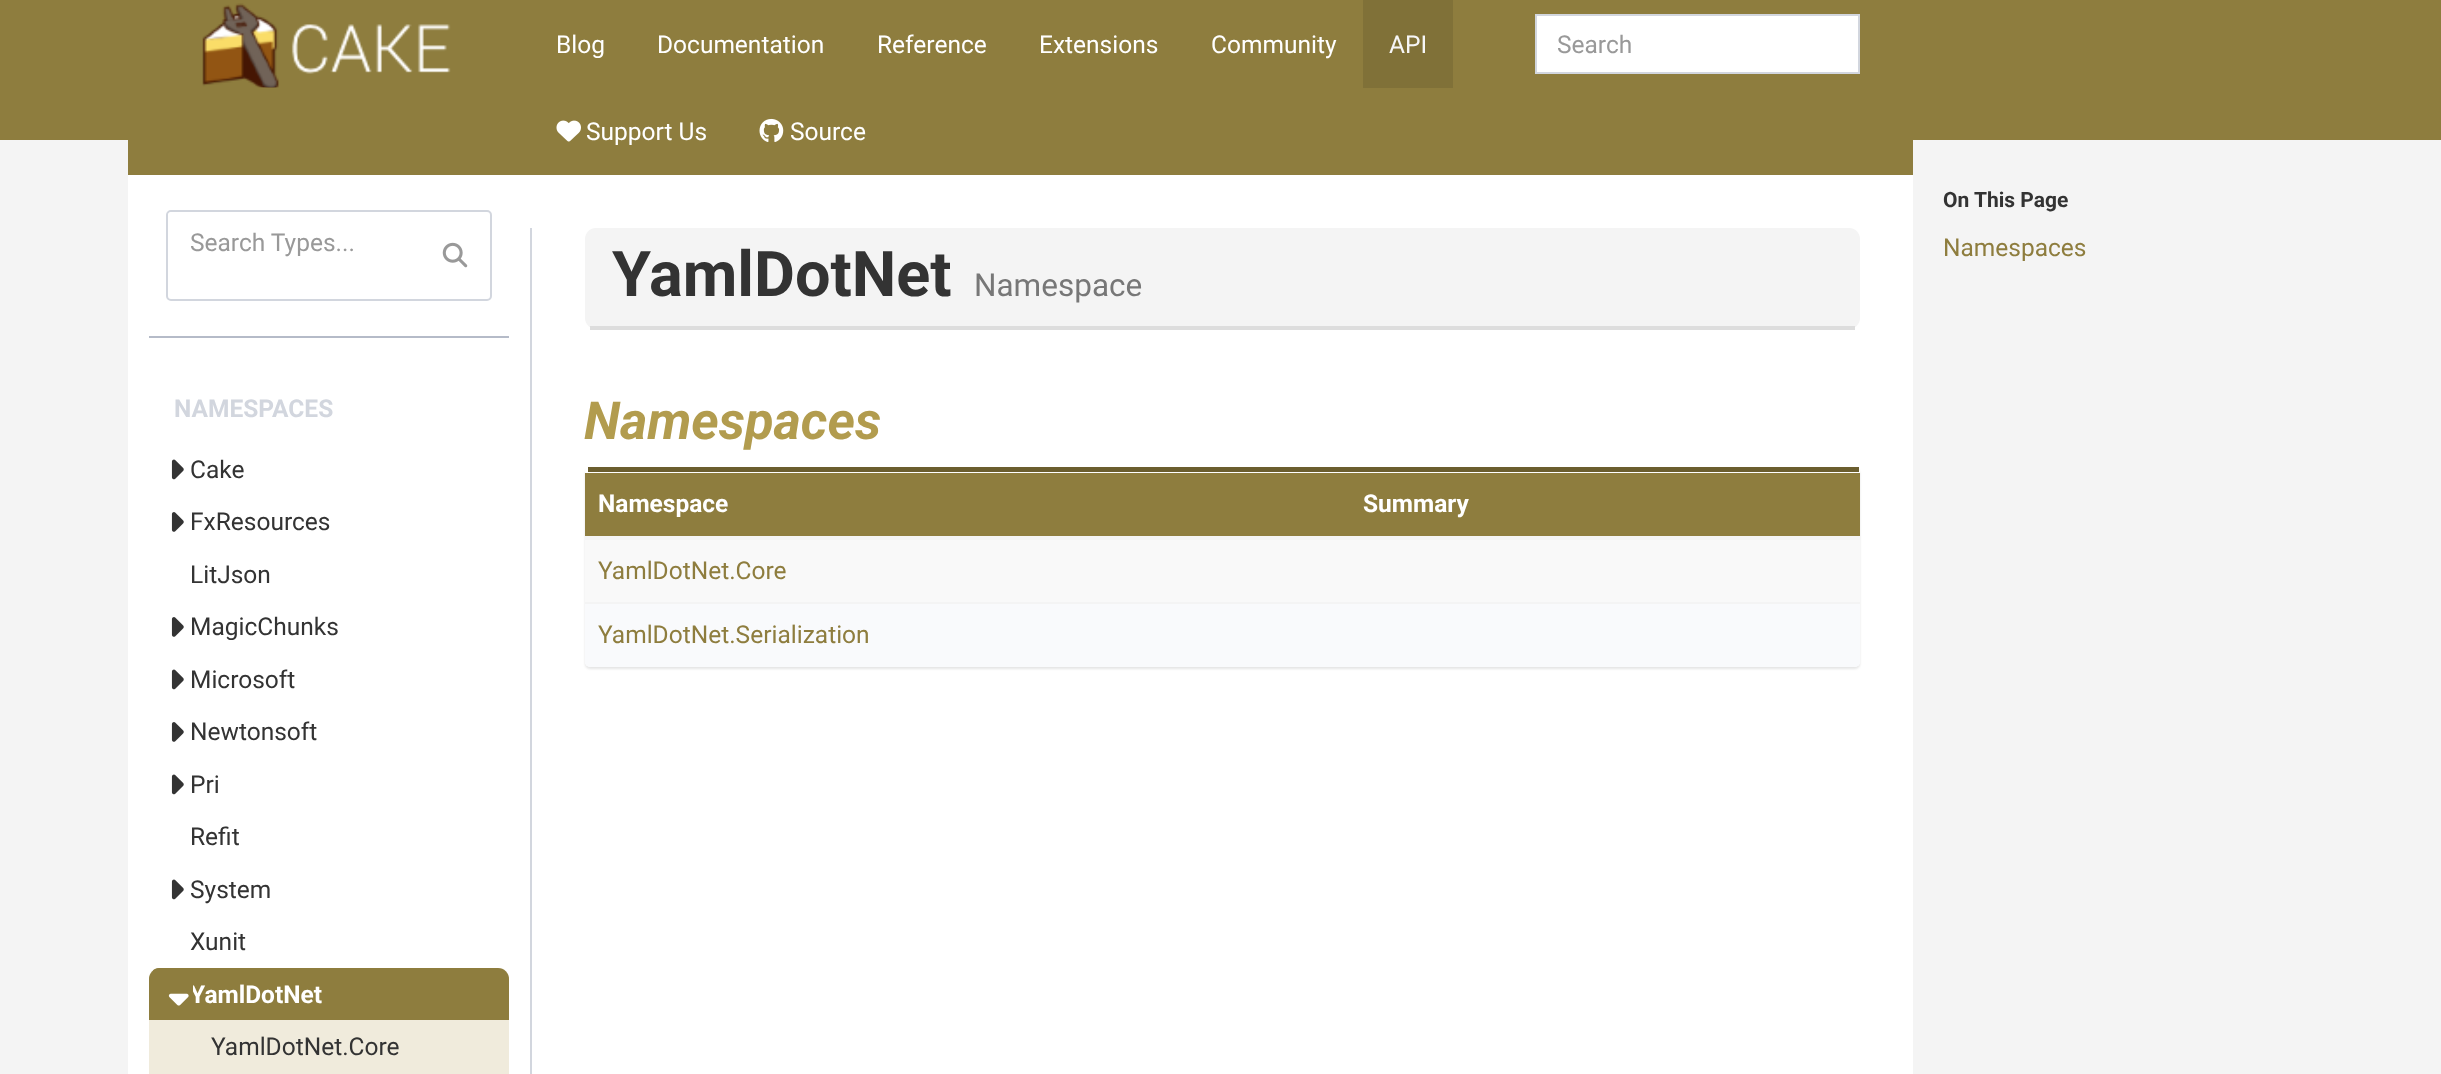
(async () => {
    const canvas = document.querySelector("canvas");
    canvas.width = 2441;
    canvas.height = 1074;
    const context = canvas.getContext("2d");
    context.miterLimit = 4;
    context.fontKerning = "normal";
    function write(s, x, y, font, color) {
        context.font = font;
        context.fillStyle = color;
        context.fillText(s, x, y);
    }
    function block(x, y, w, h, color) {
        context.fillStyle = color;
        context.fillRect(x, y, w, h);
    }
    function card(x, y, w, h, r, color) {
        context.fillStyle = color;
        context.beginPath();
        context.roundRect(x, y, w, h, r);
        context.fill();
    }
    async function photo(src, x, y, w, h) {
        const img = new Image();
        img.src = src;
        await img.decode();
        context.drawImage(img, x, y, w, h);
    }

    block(0, 0, 2441, 1074, "rgb(244, 244, 244)");
    block(0, 0, 2441, 140, "rgb(142, 125, 62)");
    block(128, 175, 1785, 899, "rgb(255, 255, 255)");
    block(128, 140, 1785, 35, "rgb(142, 125, 62)");
    await photo("media/1.png", 202, 3, 249, 85);
    write("Blog", 556, 53, "24.5px Roboto", "rgb(255, 255, 255)");
    write("Documentation", 657, 53, "24.5px Roboto", "rgb(255, 255, 255)");
    write("Reference", 877, 53, "24.5px Roboto", "rgb(255, 255, 255)");
    write("Extensions", 1039, 53, "24.5px Roboto", "rgb(255, 255, 255)");
    write("Community", 1211, 53, "24.5px Roboto", "rgb(255, 255, 255)");
    block(1363, 0, 90, 88, "rgb(128, 113, 56)");
    write("API", 1389, 53, "24.5px Roboto", "rgb(246, 246, 246)");
    context.fillStyle = "rgb(255, 255, 255)";
    context.beginPath();
    context.rect(1536, 15, 323, 58);
    context.fill();
    context.strokeStyle = "rgb(210, 214, 222)";
    context.lineWidth = 2;
    context.stroke();
    write("Search", 1557, 53, "24.5px Roboto", "rgb(153, 153, 153)");
    await photo("media/2.png", 556, 120, 25, 22);
    write("Support Us", 586, 140, "24.5px Roboto", "rgb(255, 255, 255)");
    await photo("media/3.png", 759, 118, 25, 24);
    write("Source", 790, 140, "24.5px Roboto", "rgb(255, 255, 255)");
    context.beginPath();
    context.roundRect(167, 211, 324, 89, 4);
    context.stroke();
    context.beginPath();
    context.roundRect(168, 212, 254, 61, [4, 0, 0, 4]);
    context.fill();
    write("Search Types...", 190, 251, "24.5px Roboto", "rgb(153, 153, 153)");
    await photo("media/4.png", 442, 242, 26, 26);
    block(149, 336, 360, 2, "rgb(181, 187, 200)");
    write("NAMESPACES", 174, 417, "bold 24.5px Roboto", "rgb(210, 214, 222)");
    await photo("media/5.png", 171, 459, 13, 21);
    write("Cake", 190, 478, "24.5px Roboto", "rgb(51, 51, 51)");
    await photo("media/6.png", 171, 512, 13, 20);
    write("FxResources", 190, 530, "24.5px Roboto", "rgb(51, 51, 51)");
    write("LitJson", 190, 583, "24.5px Roboto", "rgb(51, 51, 51)");
    await photo("media/6.png", 171, 617, 13, 20);
    write("MagicChunks", 190, 635, "24.5px Roboto", "rgb(51, 51, 51)");
    await photo("media/5.png", 171, 669, 13, 21);
    write("Microsoft", 190, 688, "24.5px Roboto", "rgb(51, 51, 51)");
    await photo("media/6.png", 171, 722, 13, 20);
    write("Newtonsoft", 190, 740, "24.5px Roboto", "rgb(51, 51, 51)");
    await photo("media/5.png", 171, 774, 13, 21);
    write("Pri", 190, 793, "24.5px Roboto", "rgb(51, 51, 51)");
    write("Refit", 190, 845, "24.5px Roboto", "rgb(51, 51, 51)");
    await photo("media/5.png", 171, 879, 13, 21);
    write("System", 190, 898, "24.5px Roboto", "rgb(51, 51, 51)");
    write("Xunit", 190, 950, "24.5px Roboto", "rgb(51, 51, 51)");
    card(149, 968, 360, 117, 11, "rgb(240, 235, 220)");
    context.fillStyle = "rgb(142, 125, 62)";
    context.beginPath();
    context.roundRect(149, 968, 360, 52, [11, 11, 0, 0]);
    context.fill();
    write("YamlDotNet", 190, 1003, "bold 24.5px Roboto", "rgb(255, 255, 255)");
    context.save();
    context.beginPath();
    context.roundRect(149, 968, 360, 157, 11);
    context.clip();
    block(153, 968, 40, 46, "rgb(142, 125, 62)");
    context.restore();
    await photo("media/7.png", 168, 993, 21, 13);
    write("YamlDotNet.Core", 211, 1055, "24.5px Roboto", "rgb(51, 51, 51)");
    write("On This Page", 1943, 207, "bold 21px Roboto", "rgb(51, 51, 51)");
    write("Namespaces", 1943, 256, "24.5px Roboto", "rgb(142, 125, 62)");
    block(530, 228, 2, 846, "rgb(210, 214, 222)");
    card(585, 228, 1275, 101, 11, "rgb(244, 244, 244)");
    block(590, 326, 1265, 4, "rgb(221, 221, 221)");
    write("YamlDotNet", 612, 296, "bold 63px Roboto", "rgb(51, 51, 51)");
    write("Namespace", 974, 296, "31.5px Roboto", "rgb(119, 119, 119)");
    write("Namespaces", 584, 439, "italic bold 52.5px Roboto", "rgb(178, 156, 78)");
    context.fillStyle = "rgba(0, 0, 0, 0.1)";
    context.filter = "blur(1px)";
    context.beginPath();
    context.roundRect(585, 469, 1275, 200, 5);
    context.fill();
    context.filter = "none";
    card(585, 467, 1275, 200, 5, "rgb(255, 255, 255)");
    block(588, 467, 1271, 5, "rgb(107, 94, 47)");
    block(585, 473, 1275, 63, "rgb(142, 125, 62)");
    write("Namespace", 598, 512, "bold 24.5px Roboto", "rgb(255, 255, 255)");
    block(585, 536, 1275, 4, "rgb(244, 244, 244)");
    write("Summary", 1363, 512, "bold 24.5px Roboto", "rgb(255, 255, 255)");
    block(585, 540, 1275, 62, "rgb(249, 249, 249)");
    write("YamlDotNet.Core", 598, 579, "24.5px Roboto", "rgb(142, 125, 62)");
    context.fillStyle = "rgb(249, 250, 252)";
    context.beginPath();
    context.roundRect(585, 602, 1275, 65, [0, 0, 5, 5]);
    context.fill();
    block(585, 602, 1275, 2, "rgb(244, 244, 244)");
    write("YamlDotNet.Serialization", 598, 643, "24.5px Roboto", "rgb(142, 125, 62)");
})();
